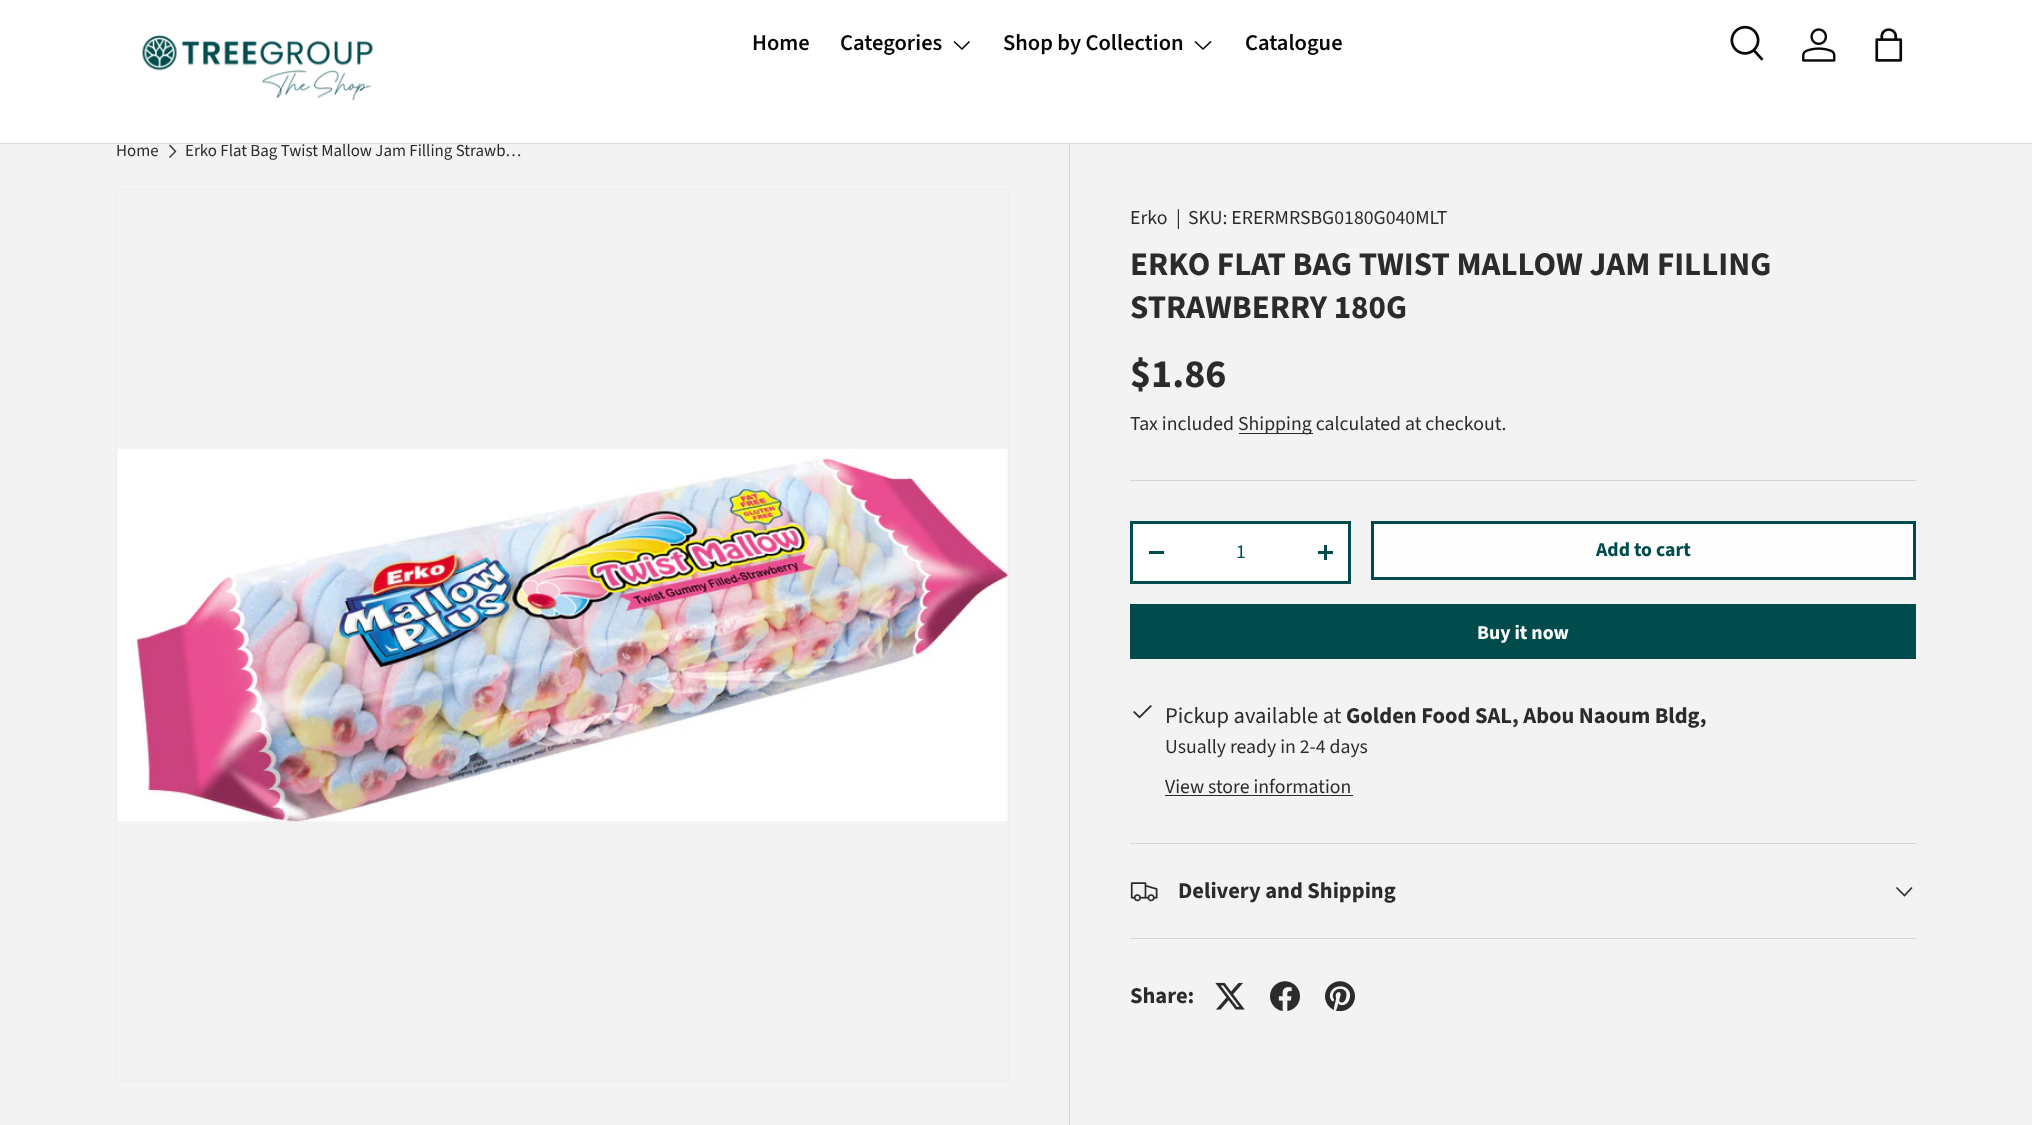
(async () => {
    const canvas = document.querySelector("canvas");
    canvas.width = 2032;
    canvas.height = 1125;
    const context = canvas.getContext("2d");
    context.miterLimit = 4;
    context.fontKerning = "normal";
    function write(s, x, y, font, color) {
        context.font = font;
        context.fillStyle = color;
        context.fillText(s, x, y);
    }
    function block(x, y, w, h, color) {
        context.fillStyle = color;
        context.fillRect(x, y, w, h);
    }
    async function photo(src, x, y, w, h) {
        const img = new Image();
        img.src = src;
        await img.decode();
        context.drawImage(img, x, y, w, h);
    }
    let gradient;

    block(0, 0, 2032, 1125, "rgb(243, 243, 243)");
    block(0, 0, 2032, 143, "rgb(255, 255, 255)");
    block(0, 143, 2032, 1, "rgb(218, 218, 218)");
    await photo("media/1.png", 142, 35, 231, 66);
    write("Home", 752, 50, "600 22.5px Source Sans Pro", "rgb(7, 7, 7)");
    write("Categories", 840, 50, "600 22.5px Source Sans Pro", "rgb(7, 7, 7)");
    context.beginPath();
    context.moveTo(969.5, 41.5);
    context.lineTo(962, 49);
    context.lineTo(954, 41.5);
    context.strokeStyle = "rgb(7, 7, 7)";
    context.lineWidth = 1.6;
    context.stroke();
    write("Shop by Collection", 1003, 50, "600 22.5px Source Sans Pro", "rgb(7, 7, 7)");
    context.beginPath();
    context.moveTo(1211, 41.5);
    context.lineTo(1203, 49);
    context.lineTo(1195, 41.5);
    context.stroke();
    write("Catalogue", 1245, 50, "600 22.5px Source Sans Pro", "rgb(7, 7, 7)");
    await photo("media/2.png", 1730, 25, 34, 36);
    await photo("media/3.png", 1802, 28, 34, 34);
    await photo("media/4.png", 1875, 28, 28, 34);
    write("Home", 116, 156, "16.9px Source Sans Pro", "rgb(42, 43, 42)");
    context.beginPath();
    context.moveTo(169.5, 145);
    context.lineTo(175.5, 151.5);
    context.lineTo(169.5, 157.5);
    context.strokeStyle = "rgb(42, 43, 42)";
    context.lineWidth = 1.3;
    context.stroke();
    write("Erko Flat Bag Twist Mallow Jam Filling Strawb…", 185, 156, "16.9px Source Sans Pro", "rgb(42, 43, 42)");
    context.strokeStyle = "rgb(238, 238, 238)";
    context.lineWidth = 1;
    context.strokeRect(116.5, 189.5, 892, 891);
    await photo("media/5.png", 117, 449, 891, 373);
    block(1069, 144, 1, 981, "rgb(213, 213, 213)");
    write("Erko", 1130, 224, "19.75px Source Sans Pro", "rgb(42, 43, 42)");
    write("|", 1176, 224, "19.75px Source Sans Pro", "rgb(42, 43, 42)");
    write("SKU: ERERMRSBG0180G040MLT", 1188, 224, "19.75px Source Sans Pro", "rgb(42, 43, 42)");
    write("ERKO FLAT BAG TWIST MALLOW JAM FILLING", 1130, 275, "bold 33px Source Sans Pro", "rgb(42, 43, 42)");
    write("STRAWBERRY 180G", 1130, 318, "bold 33px Source Sans Pro", "rgb(42, 43, 42)");
    write("$1.86", 1130, 387, "bold 40px Source Sans Pro", "rgb(42, 43, 42)");
    write("Tax included", 1130, 430, "19.75px Source Sans Pro", "rgb(42, 43, 42)");
    block(1239, 433, 74, 1, "rgb(42, 43, 42)");
    write("Shipping calculated at checkout.", 1238, 430, "19.75px Source Sans Pro", "rgb(42, 43, 42)");
    block(1130, 480, 786, 1, "rgb(213, 213, 213)");
    context.fillStyle = "rgb(255, 255, 255)";
    context.beginPath();
    context.rect(1131.5, 522.5, 218, 60);
    context.fill();
    context.strokeStyle = "rgb(0, 76, 76)";
    context.lineWidth = 3;
    context.stroke();
    block(1149, 551, 15, 3, "rgb(0, 76, 76)");
    write("1", 1236, 558, "19.75px Source Sans Pro", "rgb(0, 76, 76)");
    block(1318, 551, 15, 3, "rgb(0, 76, 76)");
    block(1324, 545, 3, 15, "rgb(0, 76, 76)");
    context.fillStyle = "rgb(254, 254, 254)";
    context.beginPath();
    context.rect(1372.5, 522.5, 542, 56);
    context.fill();
    context.stroke();
    write("Add to cart", 1596, 556, "bold 19.75px Source Sans Pro", "rgb(0, 76, 76)");
    gradient = context.createLinearGradient(-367, 355, 1851, 908);
    gradient.addColorStop(0.6, "rgb(42, 114, 114)");
    gradient.addColorStop(0.6, "rgb(0, 76, 76)");
    gradient.addColorStop(1, "rgb(0, 76, 76)");
    context.fillStyle = gradient;
    context.fillRect(1133, 607, 780, 49);
    context.strokeRect(1131.5, 605.5, 783, 52);
    write("Buy it now", 1477, 639, "bold 19.75px Source Sans Pro", "rgb(255, 255, 255)");
    context.fillStyle = "rgb(42, 43, 42)";
    context.beginPath();
    context.moveTo(1150.5, 705);
    context.lineTo(1152, 706);
    context.lineTo(1139.5, 718.5);
    context.lineTo(1133, 712);
    context.lineTo(1134.5, 711);
    context.lineTo(1139.5, 716);
    context.closePath();
    context.fill();
    write("Pickup available at", 1165, 723, "22.5px Source Sans Pro", "rgb(42, 43, 42)");
    write("Golden Food SAL, Abou Naoum Bldg,", 1346, 723, "bold 22.5px Source Sans Pro", "rgb(42, 43, 42)");
    write("Usually ready in 2-4 days", 1165, 753, "19.75px Source Sans Pro", "rgb(42, 43, 42)");
    write("View store information", 1165, 793, "19.75px Source Sans Pro", "rgb(42, 43, 42)");
    block(1165, 795, 188, 1, "rgb(42, 43, 42)");
    block(1130, 843, 786, 1, "rgb(213, 213, 213)");
    block(1130, 938, 786, 1, "rgb(213, 213, 213)");
    await photo("media/6.png", 1130, 882, 28, 20);
    write("Delivery and Shipping", 1178, 898, "bold 22.5px Source Sans Pro", "rgb(42, 43, 42)");
    context.beginPath();
    context.moveTo(1912, 887.5);
    context.lineTo(1904.5, 895.5);
    context.lineTo(1896.5, 887.5);
    context.strokeStyle = "rgb(42, 43, 42)";
    context.lineWidth = 1.6;
    context.stroke();
    write("Share:", 1130, 1003, "bold 22.5px Source Sans Pro", "rgb(42, 43, 42)");
    await photo("media/7.png", 1215, 982, 30, 28);
    await photo("media/8.png", 1270, 981, 30, 30);
    await photo("media/9.png", 1325, 981, 30, 30);
})();
